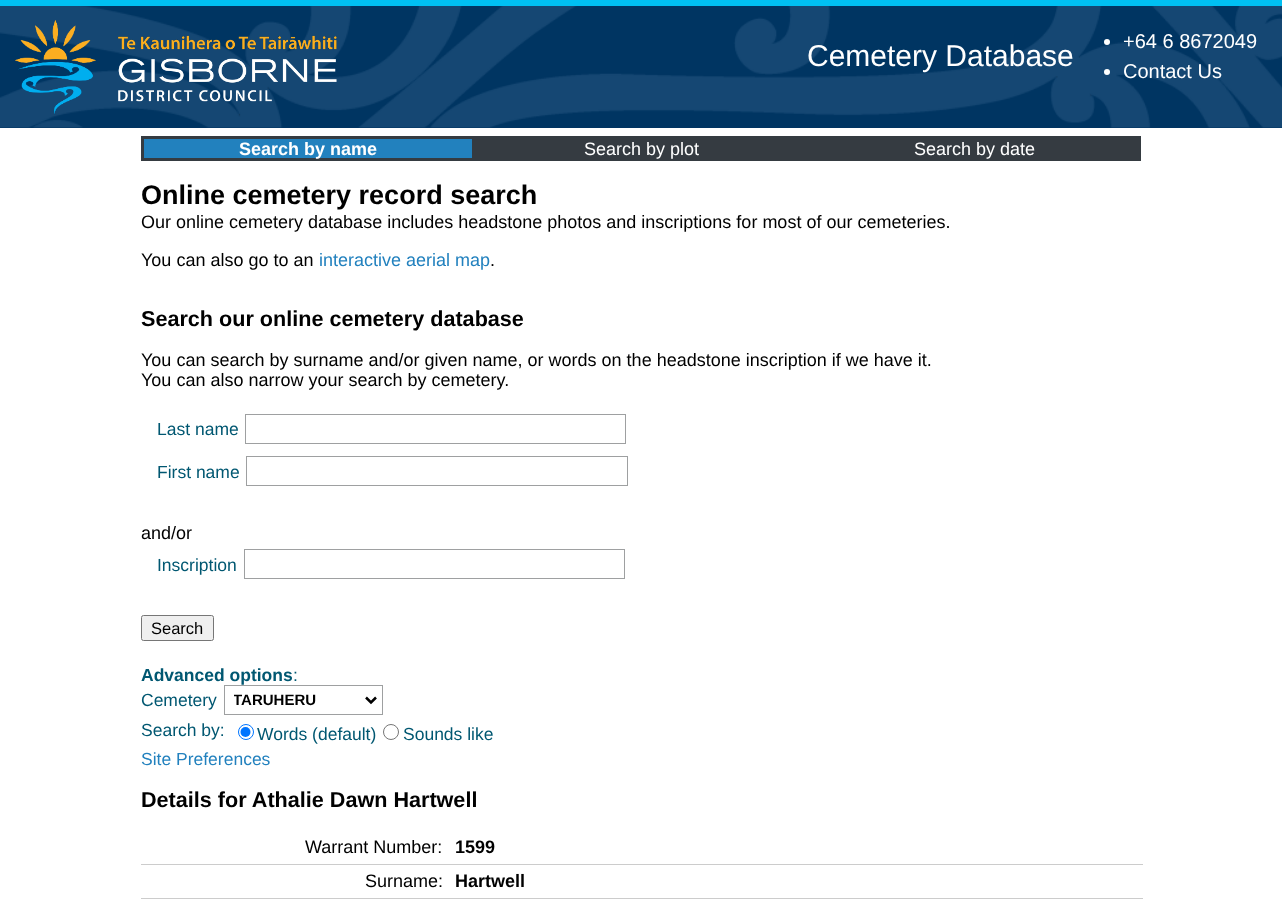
(async () => {
    const canvas = document.querySelector("canvas");
    canvas.width = 1282;
    canvas.height = 902;
    const context = canvas.getContext("2d");
    context.miterLimit = 4;
    context.fontKerning = "normal";
    function write(s, x, y, font, color) {
        context.font = font;
        context.fillStyle = color;
        context.fillText(s, x, y);
    }
    function block(x, y, w, h, color) {
        context.fillStyle = color;
        context.fillRect(x, y, w, h);
    }
    async function photo(src, x, y, w, h) {
        const img = new Image();
        img.src = src;
        await img.decode();
        context.drawImage(img, x, y, w, h);
    }

    block(0, 0, 1282, 902, "rgb(255, 255, 255)");
    block(0, 127, 1282, 1, "rgb(0, 53, 98)");
    await photo("media/1.png", 0, 6, 1282, 122);
    block(0, 0, 1282, 6, "rgb(0, 192, 243)");
    await photo("media/2.png", 15, 20, 81, 94);
    await photo("media/3.png", 118, 35, 219, 67);
    write("Cemetery Database", 807, 66, "30px Liberation Sans", "rgb(255, 255, 255)");
    context.beginPath();
    context.arc(1107, 42, 3, 0, Math.PI * 2);
    context.fill();
    write("+64 6 8672049", 1123, 48, "20px Liberation Sans", "rgb(255, 255, 255)");
    context.beginPath();
    context.arc(1107, 72, 3, 0, Math.PI * 2);
    context.fill();
    write("Contact Us", 1123, 78, "20px Liberation Sans", "rgb(255, 255, 255)");
    block(475, 136, 666, 25, "rgb(53, 59, 65)");
    context.fillStyle = "rgb(34, 129, 190)";
    context.beginPath();
    context.rect(142.5, 137.5, 331, 22);
    context.fill();
    context.strokeStyle = "rgb(53, 59, 65)";
    context.lineWidth = 3;
    context.stroke();
    write("Search by name", 239, 155, "bold 18px Liberation Sans", "rgb(255, 255, 255)");
    write("Search by plot", 584, 155, "18px Liberation Sans", "rgb(255, 255, 255)");
    write("Search by date", 914, 155, "18px Liberation Sans", "rgb(255, 255, 255)");
    write("Online cemetery record search", 141, 204, "bold 27px Liberation Sans", "rgb(0, 0, 0)");
    write("Our online cemetery database includes headstone photos and inscriptions for most of our cemeteries.", 141, 228, "18px Liberation Sans", "rgb(0, 0, 0)");
    write("You can also go to an", 141, 266, "18px Liberation Sans", "rgb(0, 0, 0)");
    write("interactive aerial map", 319, 266, "18px Liberation Sans", "rgb(34, 129, 190)");
    write(".", 490, 266, "18px Liberation Sans", "rgb(0, 0, 0)");
    write("Search our online cemetery database", 141, 326, "bold 21.6px Liberation Sans", "rgb(0, 0, 0)");
    write("You can search by surname and/or given name, or words on the headstone inscription if we have it.", 141, 366, "18px Liberation Sans", "rgb(0, 0, 0)");
    write("You can also narrow your search by cemetery.", 141, 386, "18px Liberation Sans", "rgb(0, 0, 0)");
    write("Last name", 157, 435, "17.5px Liberation Sans", "rgb(0, 87, 113)");
    context.strokeStyle = "rgb(158, 160, 161)";
    context.lineWidth = 1;
    context.strokeRect(245.5, 414.5, 380, 29);
    write("First name", 157, 478, "17.5px Liberation Sans", "rgb(0, 87, 113)");
    context.strokeRect(246.5, 456.5, 381, 29);
    write("and/or", 141, 539, "18px Liberation Sans", "rgb(0, 0, 0)");
    write("Inscription", 157, 571, "17.5px Liberation Sans", "rgb(0, 87, 113)");
    context.strokeRect(244.5, 549.5, 380, 29);
    context.fillStyle = "rgb(239, 239, 239)";
    context.beginPath();
    context.roundRect(141.5, 615.5, 72, 25, 2);
    context.fill();
    context.strokeStyle = "rgb(118, 118, 118)";
    context.stroke();
    write("Search", 151, 634, "16.5px Liberation Sans", "rgb(0, 0, 0)");
    write("Advanced options", 141, 681, "bold 17.5px Liberation Sans", "rgb(0, 87, 113)");
    write(":", 293, 681, "17.5px Liberation Sans", "rgb(0, 87, 113)");
    write("Cemetery", 141, 706, "17.5px Liberation Sans", "rgb(0, 87, 113)");
    context.strokeStyle = "rgb(158, 160, 161)";
    context.strokeRect(224.5, 685.5, 158, 29);
    context.beginPath();
    context.moveTo(366, 697.5);
    context.lineTo(371, 702.5);
    context.lineTo(376, 697.5);
    context.strokeStyle = "rgb(0, 0, 0)";
    context.lineWidth = 2.5;
    context.stroke();
    context.save();
    context.beginPath();
    context.rect(234, 690, 124, 20);
    context.clip();
    write("TARUHERU", 233, 705, "bold 15px Liberation Sans", "rgb(0, 0, 0)");
    context.restore();
    write("Search by:", 141, 736, "17.5px Liberation Sans", "rgb(0, 87, 113)");
    context.beginPath();
    context.arc(246, 732, 7.5, 0, Math.PI * 2);
    context.strokeStyle = "rgb(0, 117, 255)";
    context.lineWidth = 1;
    context.stroke();
    context.fillStyle = "rgb(0, 117, 255)";
    context.beginPath();
    context.arc(245.5, 732, 5, 0, Math.PI * 2);
    context.fill();
    write("Words (default)", 257, 740, "17.5px Liberation Sans", "rgb(0, 87, 113)");
    context.beginPath();
    context.arc(391, 732, 7.5, 0, Math.PI * 2);
    context.strokeStyle = "rgb(118, 118, 118)";
    context.stroke();
    write("Sounds like", 403, 740, "17.5px Liberation Sans", "rgb(0, 87, 113)");
    write("Site Preferences", 141, 765, "17.5px Liberation Sans", "rgb(34, 129, 190)");
    write("Details for Athalie Dawn Hartwell", 141, 807, "bold 21.6px Liberation Sans", "rgb(0, 0, 0)");
    write("Warrant Number:", 305, 853, "18px Liberation Sans", "rgb(0, 0, 0)");
    write("1599", 455, 853, "bold 18px Liberation Sans", "rgb(0, 0, 0)");
    write("Surname:", 365, 887, "18px Liberation Sans", "rgb(0, 0, 0)");
    block(141, 864, 1002, 1, "rgb(204, 204, 204)");
    write("Hartwell", 455, 887, "bold 18px Liberation Sans", "rgb(0, 0, 0)");
    block(141, 898, 1002, 1, "rgb(204, 204, 204)");
})();
